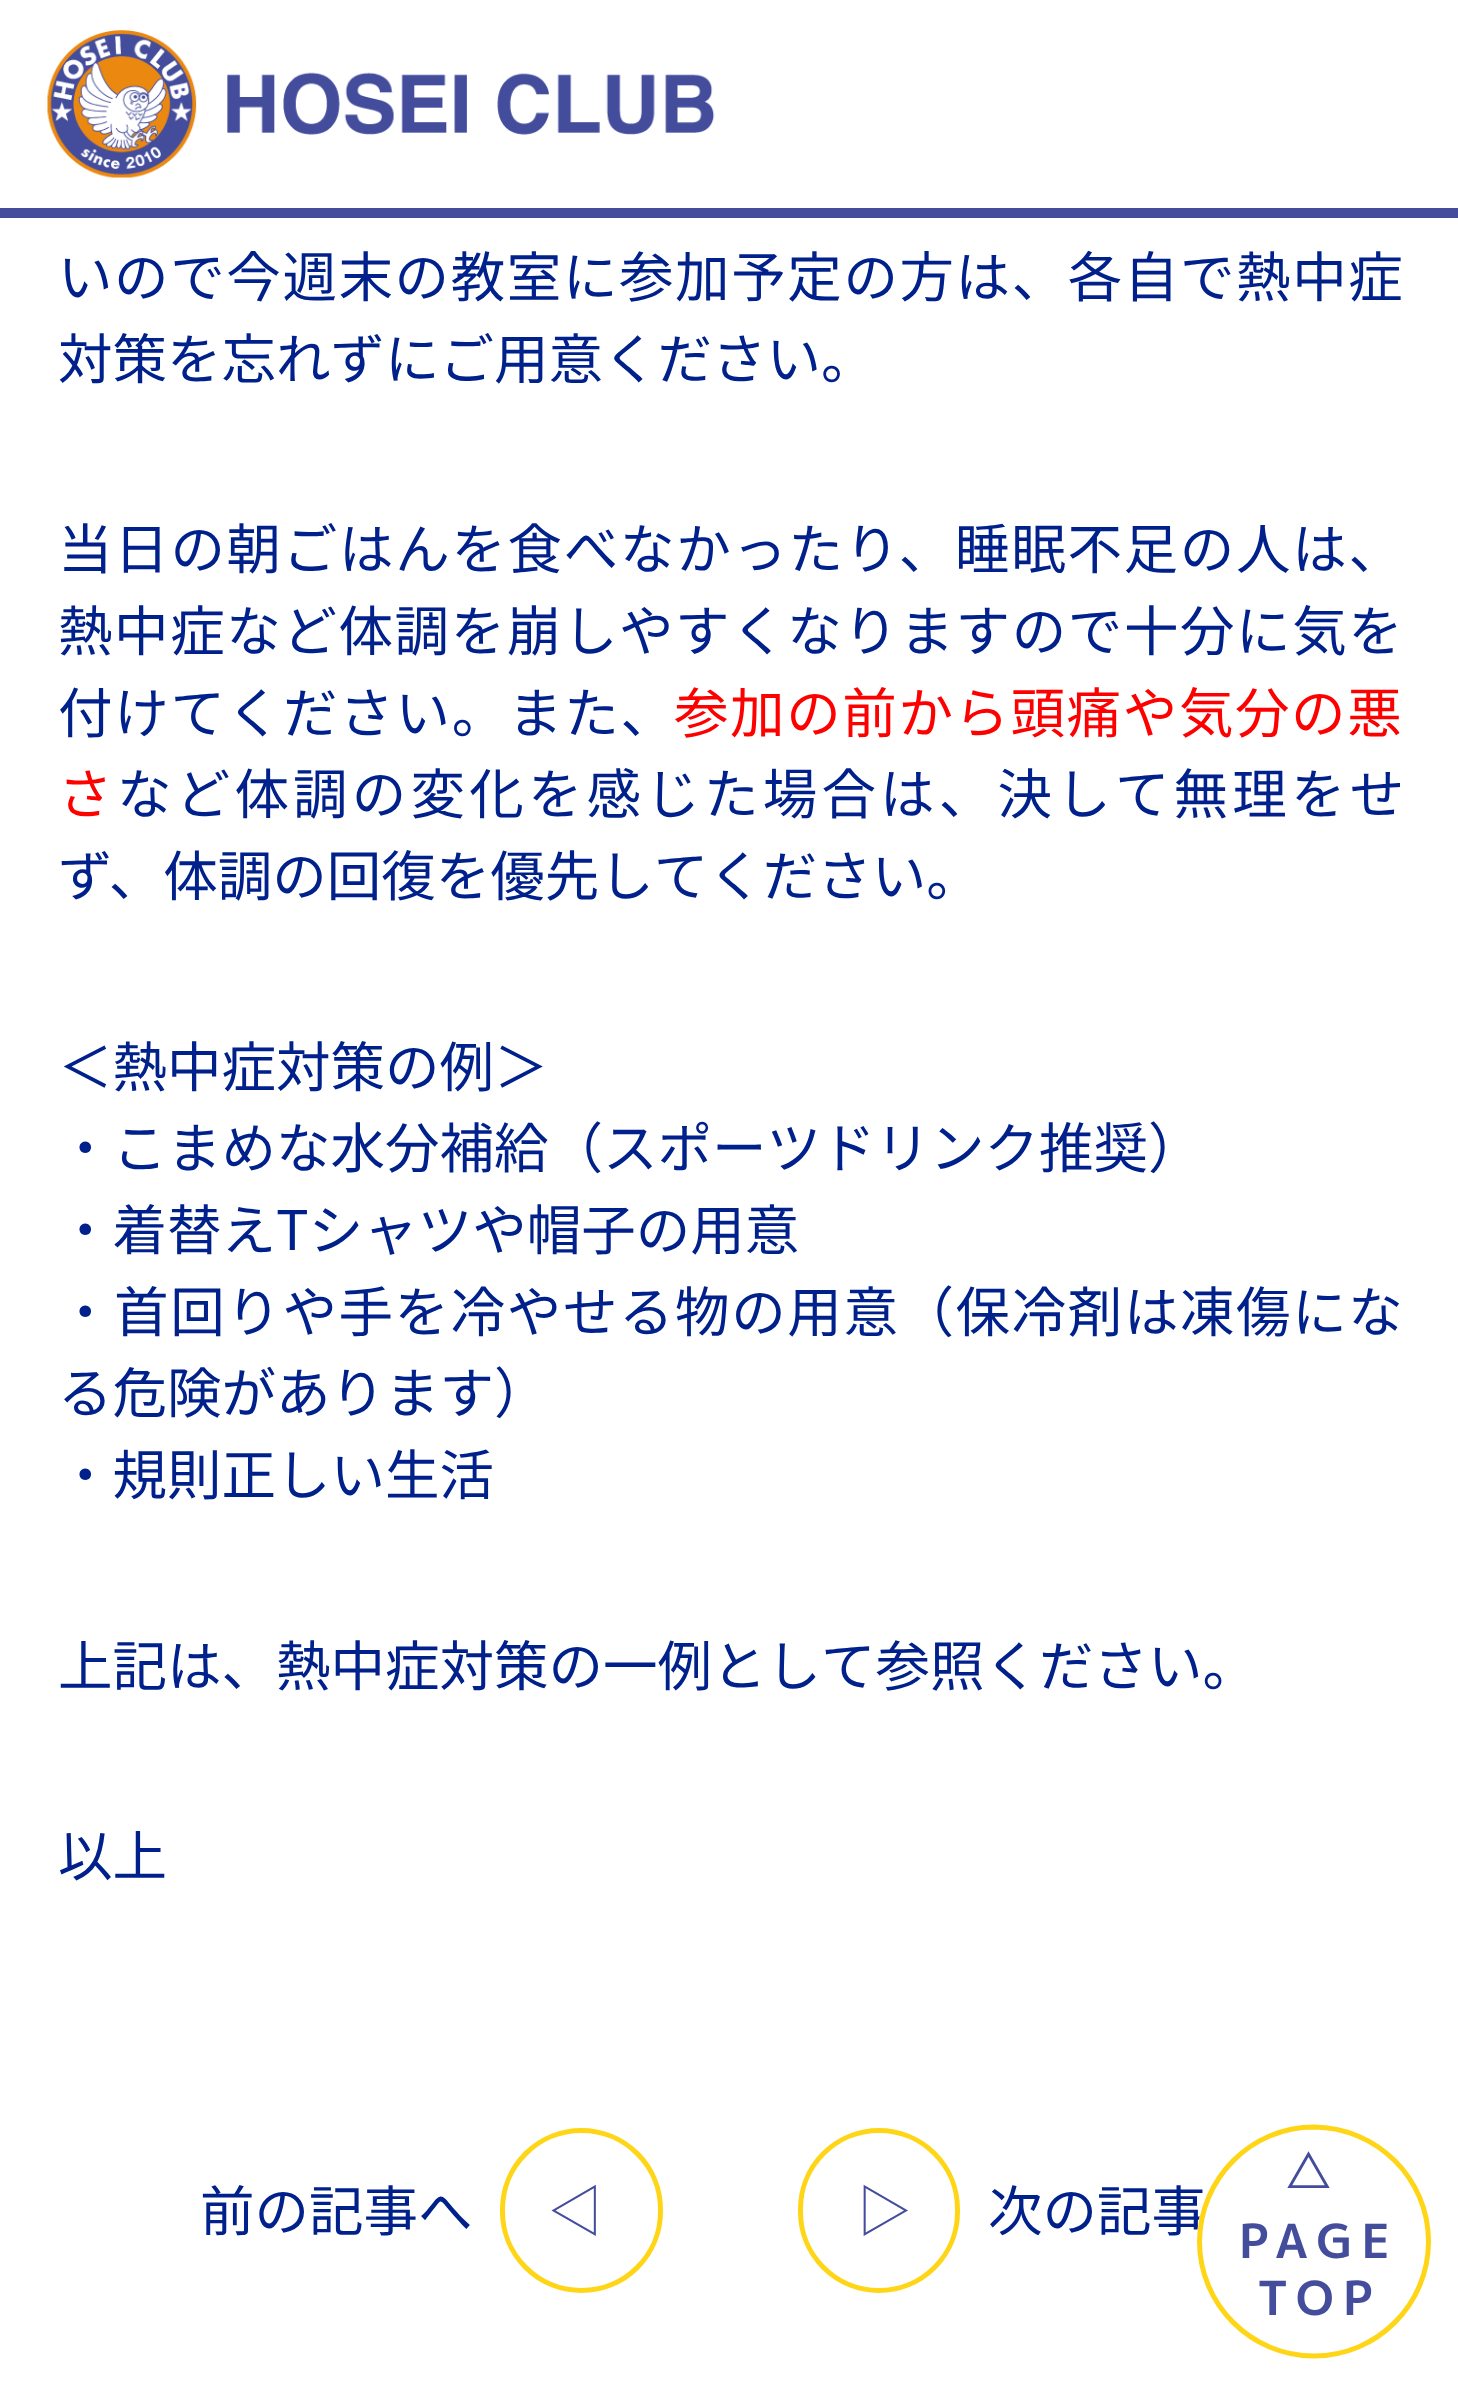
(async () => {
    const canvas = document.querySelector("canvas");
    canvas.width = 1458;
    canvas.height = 2387;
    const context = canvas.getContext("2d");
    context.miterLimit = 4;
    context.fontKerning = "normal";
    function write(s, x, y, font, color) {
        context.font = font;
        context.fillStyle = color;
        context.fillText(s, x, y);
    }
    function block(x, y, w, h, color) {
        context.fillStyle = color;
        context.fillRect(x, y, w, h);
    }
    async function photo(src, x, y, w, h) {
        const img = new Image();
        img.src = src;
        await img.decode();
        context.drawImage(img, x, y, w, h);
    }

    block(0, 0, 1458, 2387, "rgb(255, 255, 255)");
    block(0, 208, 1458, 10, "rgb(68, 77, 156)");
    await photo("media/1.png", 47, 30, 668, 148);
    context.letterSpacing = "1.6px";
    write("いので今週末の教室に参加予定の方は、各自で熱中症", 58, 297, "100 54.5px Noto Sans JP", "rgb(0, 33, 139)");
    context.letterSpacing = "0px";
    write("対策を忘れずにご用意ください。", 58, 379, "100 54.5px Noto Sans JP", "rgb(0, 33, 139)");
    context.letterSpacing = "1.7px";
    write("当日の朝ごはんを食べなかったり、睡眠不足の人は、", 58, 569, "100 54.5px Noto Sans JP", "rgb(0, 33, 139)");
    context.letterSpacing = "1.6px";
    write("熱中症など体調を崩しやすくなりますので十分に気を", 58, 651, "100 54.5px Noto Sans JP", "rgb(0, 33, 139)");
    context.letterSpacing = "1.75px";
    write("付けてください。また、", 58, 733, "100 54.5px Noto Sans JP", "rgb(0, 33, 139)");
    context.letterSpacing = "1.6px";
    write("参加の前から頭痛や気分の悪", 674, 733, "100 54.5px Noto Sans JP", "rgb(255, 0, 0)");
    context.letterSpacing = "0px";
    write("さ", 58, 814, "100 54.5px Noto Sans JP", "rgb(255, 0, 0)");
    context.letterSpacing = "4.2px";
    write("など体調の変化を感じた場合は、決して無理をせ", 117, 814, "100 54.5px Noto Sans JP", "rgb(0, 33, 139)");
    context.letterSpacing = "0px";
    write("ず、体調の回復を優先してください。", 58, 896, "100 54.5px Noto Sans JP", "rgb(0, 33, 139)");
    write("＜熱中症対策の例＞", 58, 1087, "100 54.5px Noto Sans JP", "rgb(0, 33, 139)");
    write("・こまめな水分補給（スポーツドリンク推奨）", 58, 1168, "100 54.5px Noto Sans JP", "rgb(0, 33, 139)");
    write("・着替えTシャツや帽子の用意", 58, 1250, "100 54.5px Noto Sans JP", "rgb(0, 33, 139)");
    context.letterSpacing = "1.6px";
    write("・首回りや手を冷やせる物の用意（保冷剤は凍傷にな", 58, 1332, "100 54.5px Noto Sans JP", "rgb(0, 33, 139)");
    context.letterSpacing = "0px";
    write("る危険があります）", 58, 1413, "100 54.5px Noto Sans JP", "rgb(0, 33, 139)");
    write("・規則正しい生活", 58, 1495, "100 54.5px Noto Sans JP", "rgb(0, 33, 139)");
    write("上記は、熱中症対策の一例として参照ください。", 58, 1686, "100 54.5px Noto Sans JP", "rgb(0, 33, 139)");
    write("以上", 58, 1876, "100 54.5px Noto Sans JP", "rgb(0, 33, 139)");
    write("前の記事へ", 200, 2231, "100 54.5px Noto Sans JP", "rgb(0, 33, 139)");
    context.beginPath();
    context.roundRect(502.5, 2130.5, 158, 160, 79);
    context.strokeStyle = "rgb(255, 214, 23)";
    context.lineWidth = 5;
    context.stroke();
    write("◁", 548, 2231, "100 54.5px Noto Sans JP", "rgb(68, 77, 156)");
    context.beginPath();
    context.roundRect(800.5, 2130.5, 157, 160, 78.5);
    context.stroke();
    write("▷", 857, 2231, "100 54.5px Noto Sans JP", "rgb(68, 77, 156)");
    write("次の記事", 988, 2231, "100 54.5px Noto Sans JP", "rgb(0, 33, 139)");
    context.fillStyle = "rgb(255, 255, 255)";
    context.beginPath();
    context.moveTo(1314, 2125);
    context.bezierCurveTo(1379, 2125, 1431, 2177, 1431, 2242);
    context.bezierCurveTo(1431, 2306, 1378, 2358, 1314, 2358);
    context.bezierCurveTo(1249, 2358, 1197, 2306, 1197, 2241);
    context.bezierCurveTo(1197, 2177, 1250, 2125, 1314, 2125);
    context.closePath();
    context.fill();
    context.beginPath();
    context.moveTo(1314, 2127);
    context.bezierCurveTo(1377, 2127.5, 1428.5, 2178.5, 1428.5, 2241.5);
    context.bezierCurveTo(1428.5, 2304.5, 1377, 2356, 1314, 2356);
    context.bezierCurveTo(1251, 2356, 1199.5, 2304.5, 1199.5, 2241.5);
    context.bezierCurveTo(1200, 2178.5, 1251, 2127, 1314, 2127);
    context.closePath();
    context.stroke();
    context.letterSpacing = "11px";
    write("△", 1285, 2188, "bold 47px 'M PLUS 1p'", "rgb(68, 77, 156)");
    context.letterSpacing = "9.5px";
    write("PAGE", 1239, 2258, "bold 47px 'M PLUS 1p'", "rgb(68, 77, 156)");
    write("TOP", 1257, 2315, "bold 47px 'M PLUS 1p'", "rgb(68, 77, 156)");
})();
